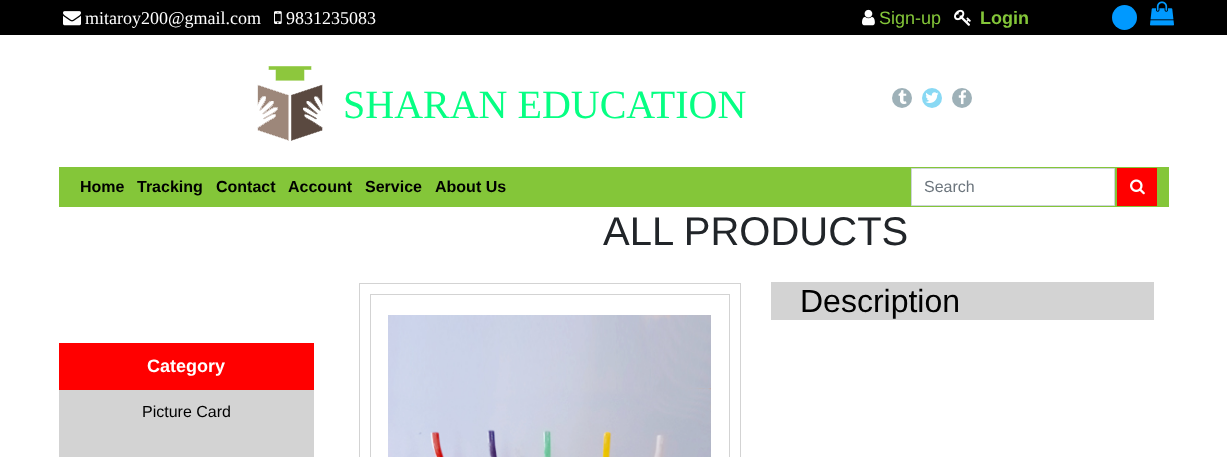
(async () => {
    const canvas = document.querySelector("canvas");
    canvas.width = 1227;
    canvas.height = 457;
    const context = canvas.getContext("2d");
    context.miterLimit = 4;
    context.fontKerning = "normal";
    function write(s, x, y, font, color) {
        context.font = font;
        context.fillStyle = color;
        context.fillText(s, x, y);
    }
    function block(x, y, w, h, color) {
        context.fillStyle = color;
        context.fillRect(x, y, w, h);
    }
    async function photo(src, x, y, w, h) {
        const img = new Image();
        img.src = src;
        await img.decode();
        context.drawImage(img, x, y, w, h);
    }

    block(0, 0, 1227, 457, "rgb(255, 255, 255)");
    block(0, 0, 1227, 35, "rgb(0, 0, 0)");
    await photo("media/1.png", 63, 11, 18, 15);
    write("mitaroy200@gmail.com", 85, 24, "18px Liberation Serif", "rgb(255, 255, 255)");
    await photo("media/2.png", 274, 11, 8, 13);
    write("9831235083", 286, 24, "18px Liberation Serif", "rgb(255, 255, 255)");
    await photo("media/3.png", 862, 9, 13, 17);
    write("Sign-up", 879, 24, "18px Liberation Sans", "rgb(132, 198, 57)");
    await photo("media/4.png", 954, 9, 17, 17);
    write("Login", 980, 24, "bold 18px Liberation Sans", "rgb(132, 198, 57)");
    context.fillStyle = "rgb(0, 153, 255)";
    context.beginPath();
    context.arc(1124.5, 17.5, 12.5, 0, Math.PI * 2);
    context.fill();
    await photo("media/5.png", 1150, 1, 24, 25);
    await photo("media/6.png", 257, 66, 66, 75);
    write("SHARAN EDUCATION", 343, 118, "40px Liberation Serif", "rgb(6, 255, 131)");
    context.fillStyle = "rgb(158, 177, 184)";
    context.beginPath();
    context.arc(902, 98, 10, 0, Math.PI * 2);
    context.fill();
    await photo("media/7.png", 898, 90, 9, 14);
    context.fillStyle = "rgb(137, 217, 244)";
    context.beginPath();
    context.arc(932, 98, 10, 0, Math.PI * 2);
    context.fill();
    await photo("media/8.png", 925, 92, 14, 11);
    context.fillStyle = "rgb(158, 177, 184)";
    context.beginPath();
    context.arc(962, 98, 10, 0, Math.PI * 2);
    context.fill();
    await photo("media/9.png", 958, 90, 8, 15);
    block(59, 167, 1110, 40, "rgb(132, 198, 57)");
    write("Home", 80, 192, "bold 16px Liberation Sans", "rgb(0, 0, 0)");
    write("Tracking", 137, 192, "bold 16px Liberation Sans", "rgb(0, 0, 0)");
    write("Contact", 216, 192, "bold 16px Liberation Sans", "rgb(0, 0, 0)");
    write("Account", 288, 192, "bold 16px Liberation Sans", "rgb(0, 0, 0)");
    write("Service", 365, 192, "bold 16px Liberation Sans", "rgb(0, 0, 0)");
    write("About Us", 435, 192, "bold 16px Liberation Sans", "rgb(0, 0, 0)");
    context.fillStyle = "rgb(255, 255, 255)";
    context.beginPath();
    context.rect(911.5, 168.5, 203, 37);
    context.fill();
    context.strokeStyle = "rgb(206, 212, 218)";
    context.stroke();
    write("Search", 924, 192, "16px Liberation Sans", "rgb(108, 117, 125)");
    block(1117, 168, 40, 38, "rgb(255, 0, 0)");
    await photo("media/10.png", 1130, 179, 15, 16);
    write("ALL PRODUCTS", 603, 245, "40px Liberation Sans", "rgb(33, 37, 41)");
    context.strokeStyle = "rgb(211, 211, 211)";
    context.strokeRect(359.5, 283.5, 381, 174);
    context.strokeRect(370.5, 294.5, 359, 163);
    await photo("media/11.png", 388, 315, 323, 142);
    block(771, 282, 383, 38, "rgb(211, 211, 211)");
    write("Description", 800, 312, "32px Liberation Sans", "rgb(0, 0, 0)");
    block(59, 343, 255, 47, "rgb(255, 0, 0)");
    write("Category", 147, 372, "bold 18px Liberation Sans", "rgb(255, 255, 255)");
    block(59, 390, 255, 67, "rgb(211, 211, 211)");
    write("Picture Card", 142, 417, "16px Liberation Sans", "rgb(0, 0, 0)");
})();
